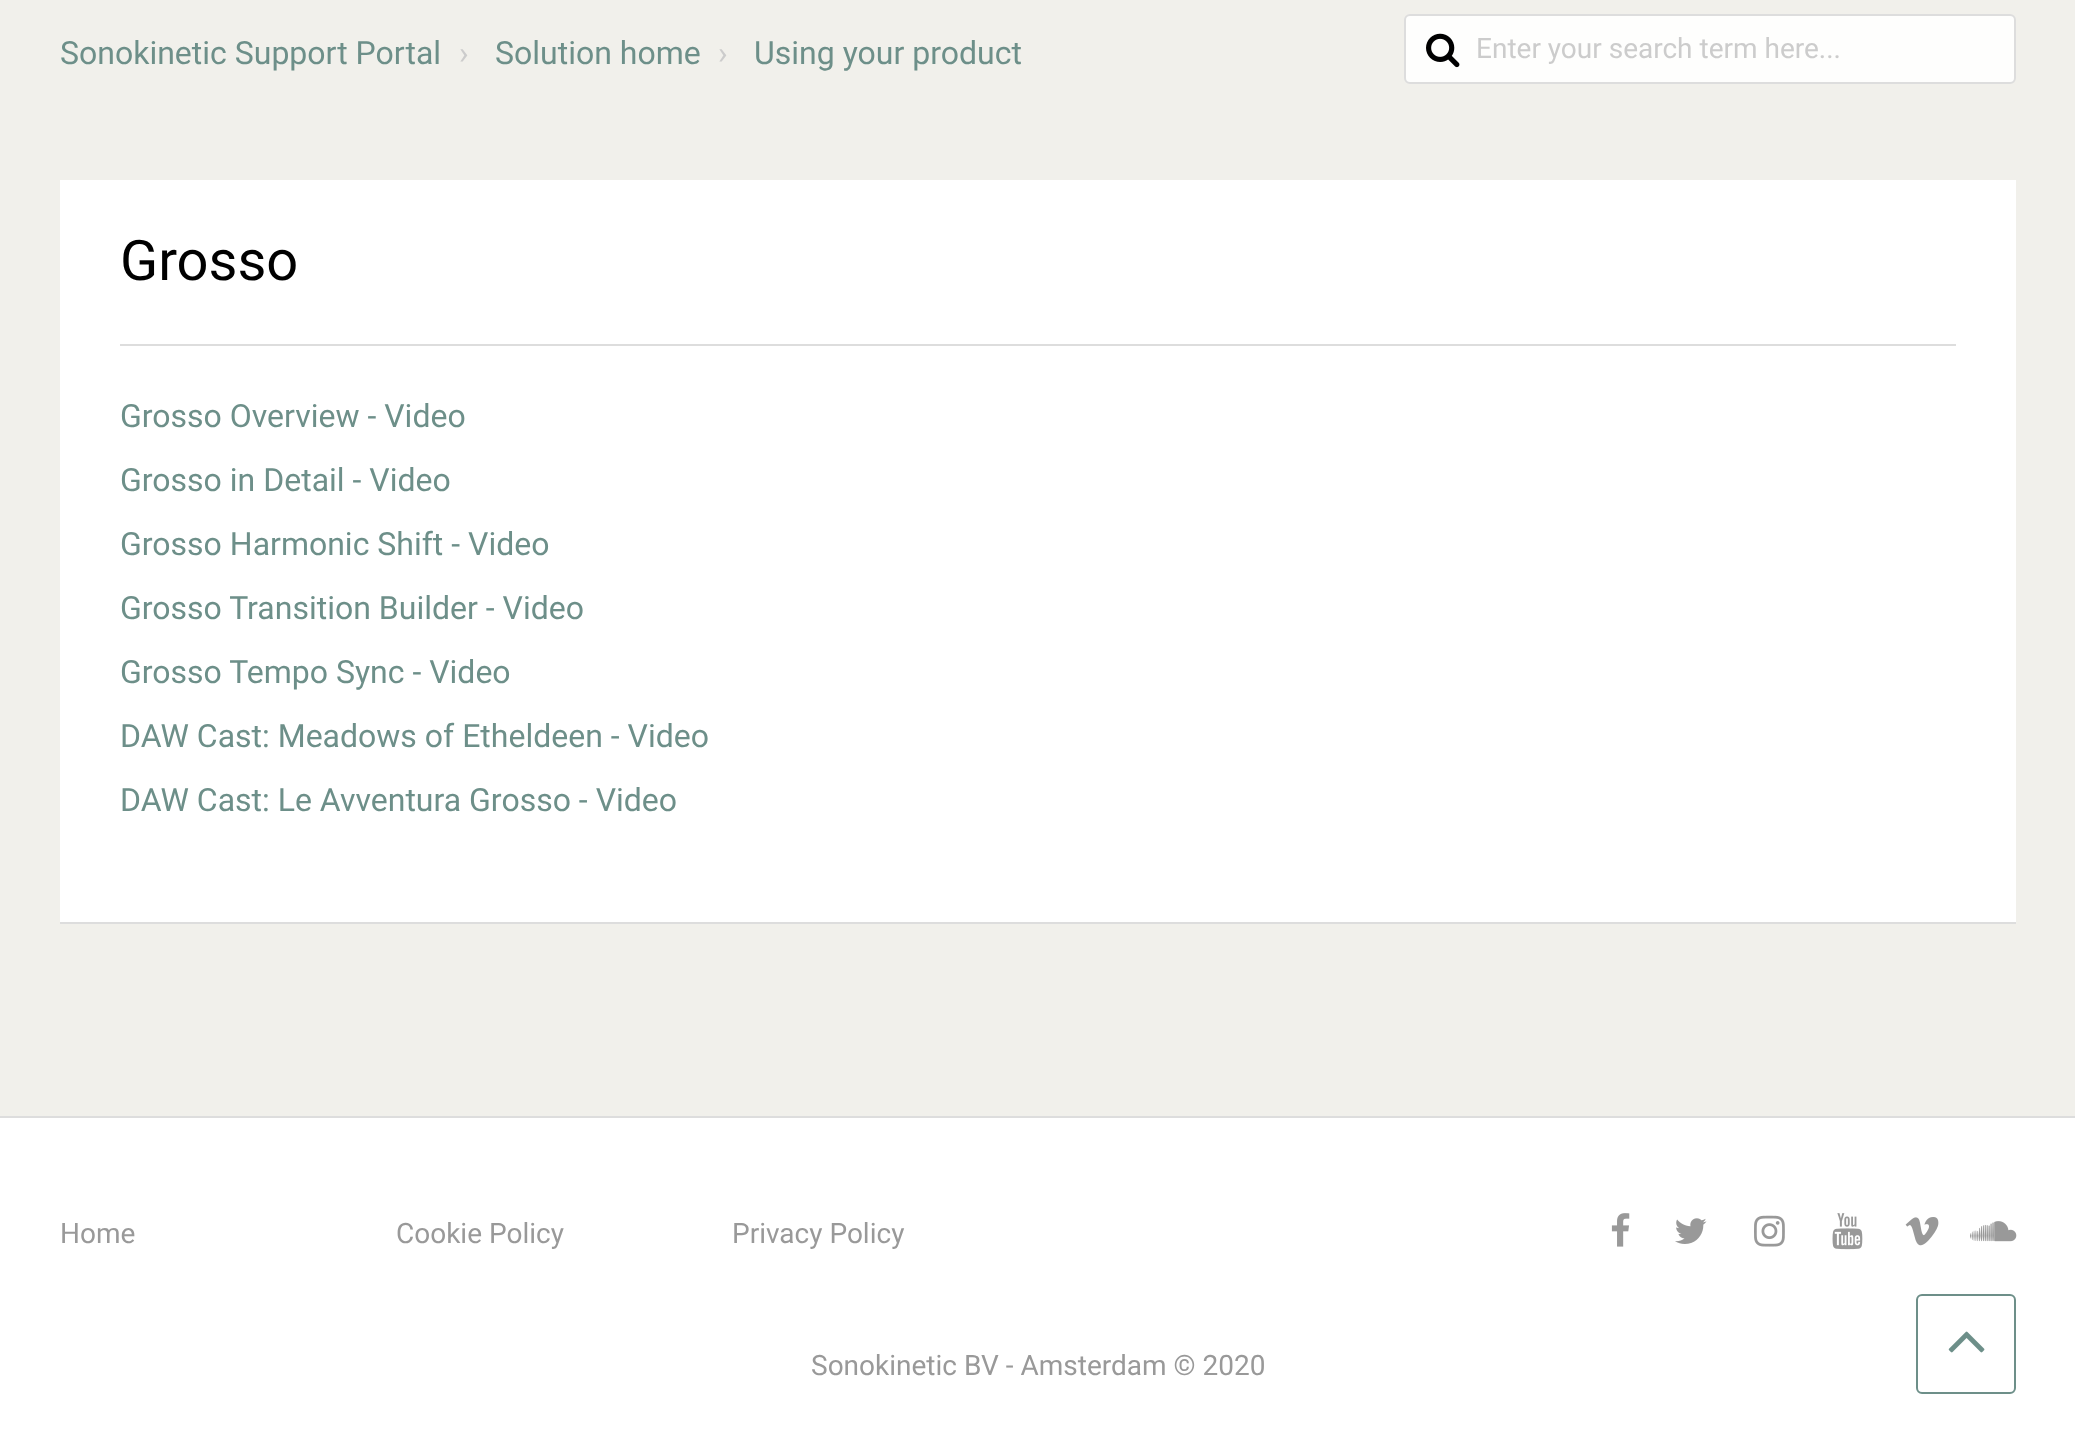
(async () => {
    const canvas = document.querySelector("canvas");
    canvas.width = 2075;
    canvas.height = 1454;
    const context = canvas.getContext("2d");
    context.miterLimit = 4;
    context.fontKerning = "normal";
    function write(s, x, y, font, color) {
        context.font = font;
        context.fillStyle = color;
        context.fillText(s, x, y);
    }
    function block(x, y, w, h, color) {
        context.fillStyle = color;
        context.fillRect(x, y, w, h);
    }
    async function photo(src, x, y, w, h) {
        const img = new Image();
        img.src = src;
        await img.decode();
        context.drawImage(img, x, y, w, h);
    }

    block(0, 0, 2075, 1454, "rgb(255, 255, 255)");
    block(0, 0, 2075, 1116, "rgb(241, 240, 235)");
    write("Sonokinetic Support Portal", 60, 64, "32px Roboto", "rgb(109, 143, 137)");
    write("›", 459, 64, "32px Roboto", "rgb(204, 204, 204)");
    write("Solution home", 495, 64, "32px Roboto", "rgb(109, 143, 137)");
    write("›", 718, 64, "32px Roboto", "rgb(204, 204, 204)");
    write("Using your product", 754, 64, "32px Roboto", "rgb(109, 143, 137)");
    context.fillStyle = "rgb(254, 254, 253)";
    context.beginPath();
    context.roundRect(1405, 15, 610, 68, 5);
    context.fill();
    context.strokeStyle = "rgb(221, 221, 221)";
    context.lineWidth = 2;
    context.stroke();
    await photo("media/1.png", 1426, 33, 34, 35);
    write("Enter your search term here...", 1476, 58, "28px Roboto", "rgb(204, 204, 204)");
    block(60, 180, 1956, 742, "rgb(255, 255, 255)");
    block(60, 922, 1956, 2, "rgb(221, 221, 221)");
    block(120, 344, 1836, 2, "rgb(221, 221, 221)");
    write("Grosso", 120, 280, "56px Roboto", "rgb(0, 0, 0)");
    write("Grosso Overview - Video", 120, 427, "32px Roboto", "rgb(109, 143, 137)");
    write("Grosso in Detail - Video", 120, 491, "32px Roboto", "rgb(109, 143, 137)");
    write("Grosso Harmonic Shift - Video", 120, 555, "32px Roboto", "rgb(109, 143, 137)");
    write("Grosso Transition Builder - Video", 120, 619, "32px Roboto", "rgb(109, 143, 137)");
    write("Grosso Tempo Sync - Video", 120, 683, "32px Roboto", "rgb(109, 143, 137)");
    write("DAW Cast: Meadows of Etheldeen - Video", 120, 747, "32px Roboto", "rgb(109, 143, 137)");
    write("DAW Cast: Le Avventura Grosso - Video", 120, 811, "32px Roboto", "rgb(109, 143, 137)");
    block(0, 1116, 2075, 2, "rgb(221, 221, 221)");
    write("Home", 60, 1243, "28px Roboto", "rgb(153, 153, 153)");
    write("Cookie Policy", 396, 1243, "28px Roboto", "rgb(153, 153, 153)");
    write("Privacy Policy", 732, 1243, "28px Roboto", "rgb(153, 153, 153)");
    await photo("media/2.png", 1611, 1213, 19, 34);
    await photo("media/3.png", 1675, 1218, 32, 26);
    await photo("media/4.png", 1754, 1215, 31, 32);
    await photo("media/5.png", 1832, 1213, 31, 37);
    await photo("media/6.png", 1905, 1217, 34, 29);
    await photo("media/7.png", 1970, 1221, 47, 21);
    write("Sonokinetic BV - Amsterdam © 2020", 811, 1375, "28px Roboto", "rgb(153, 153, 153)");
    context.beginPath();
    context.roundRect(1917, 1295, 98, 98, 5);
    context.strokeStyle = "rgb(109, 143, 137)";
    context.stroke();
    await photo("media/8.png", 1948, 1331, 37, 22);
})();
